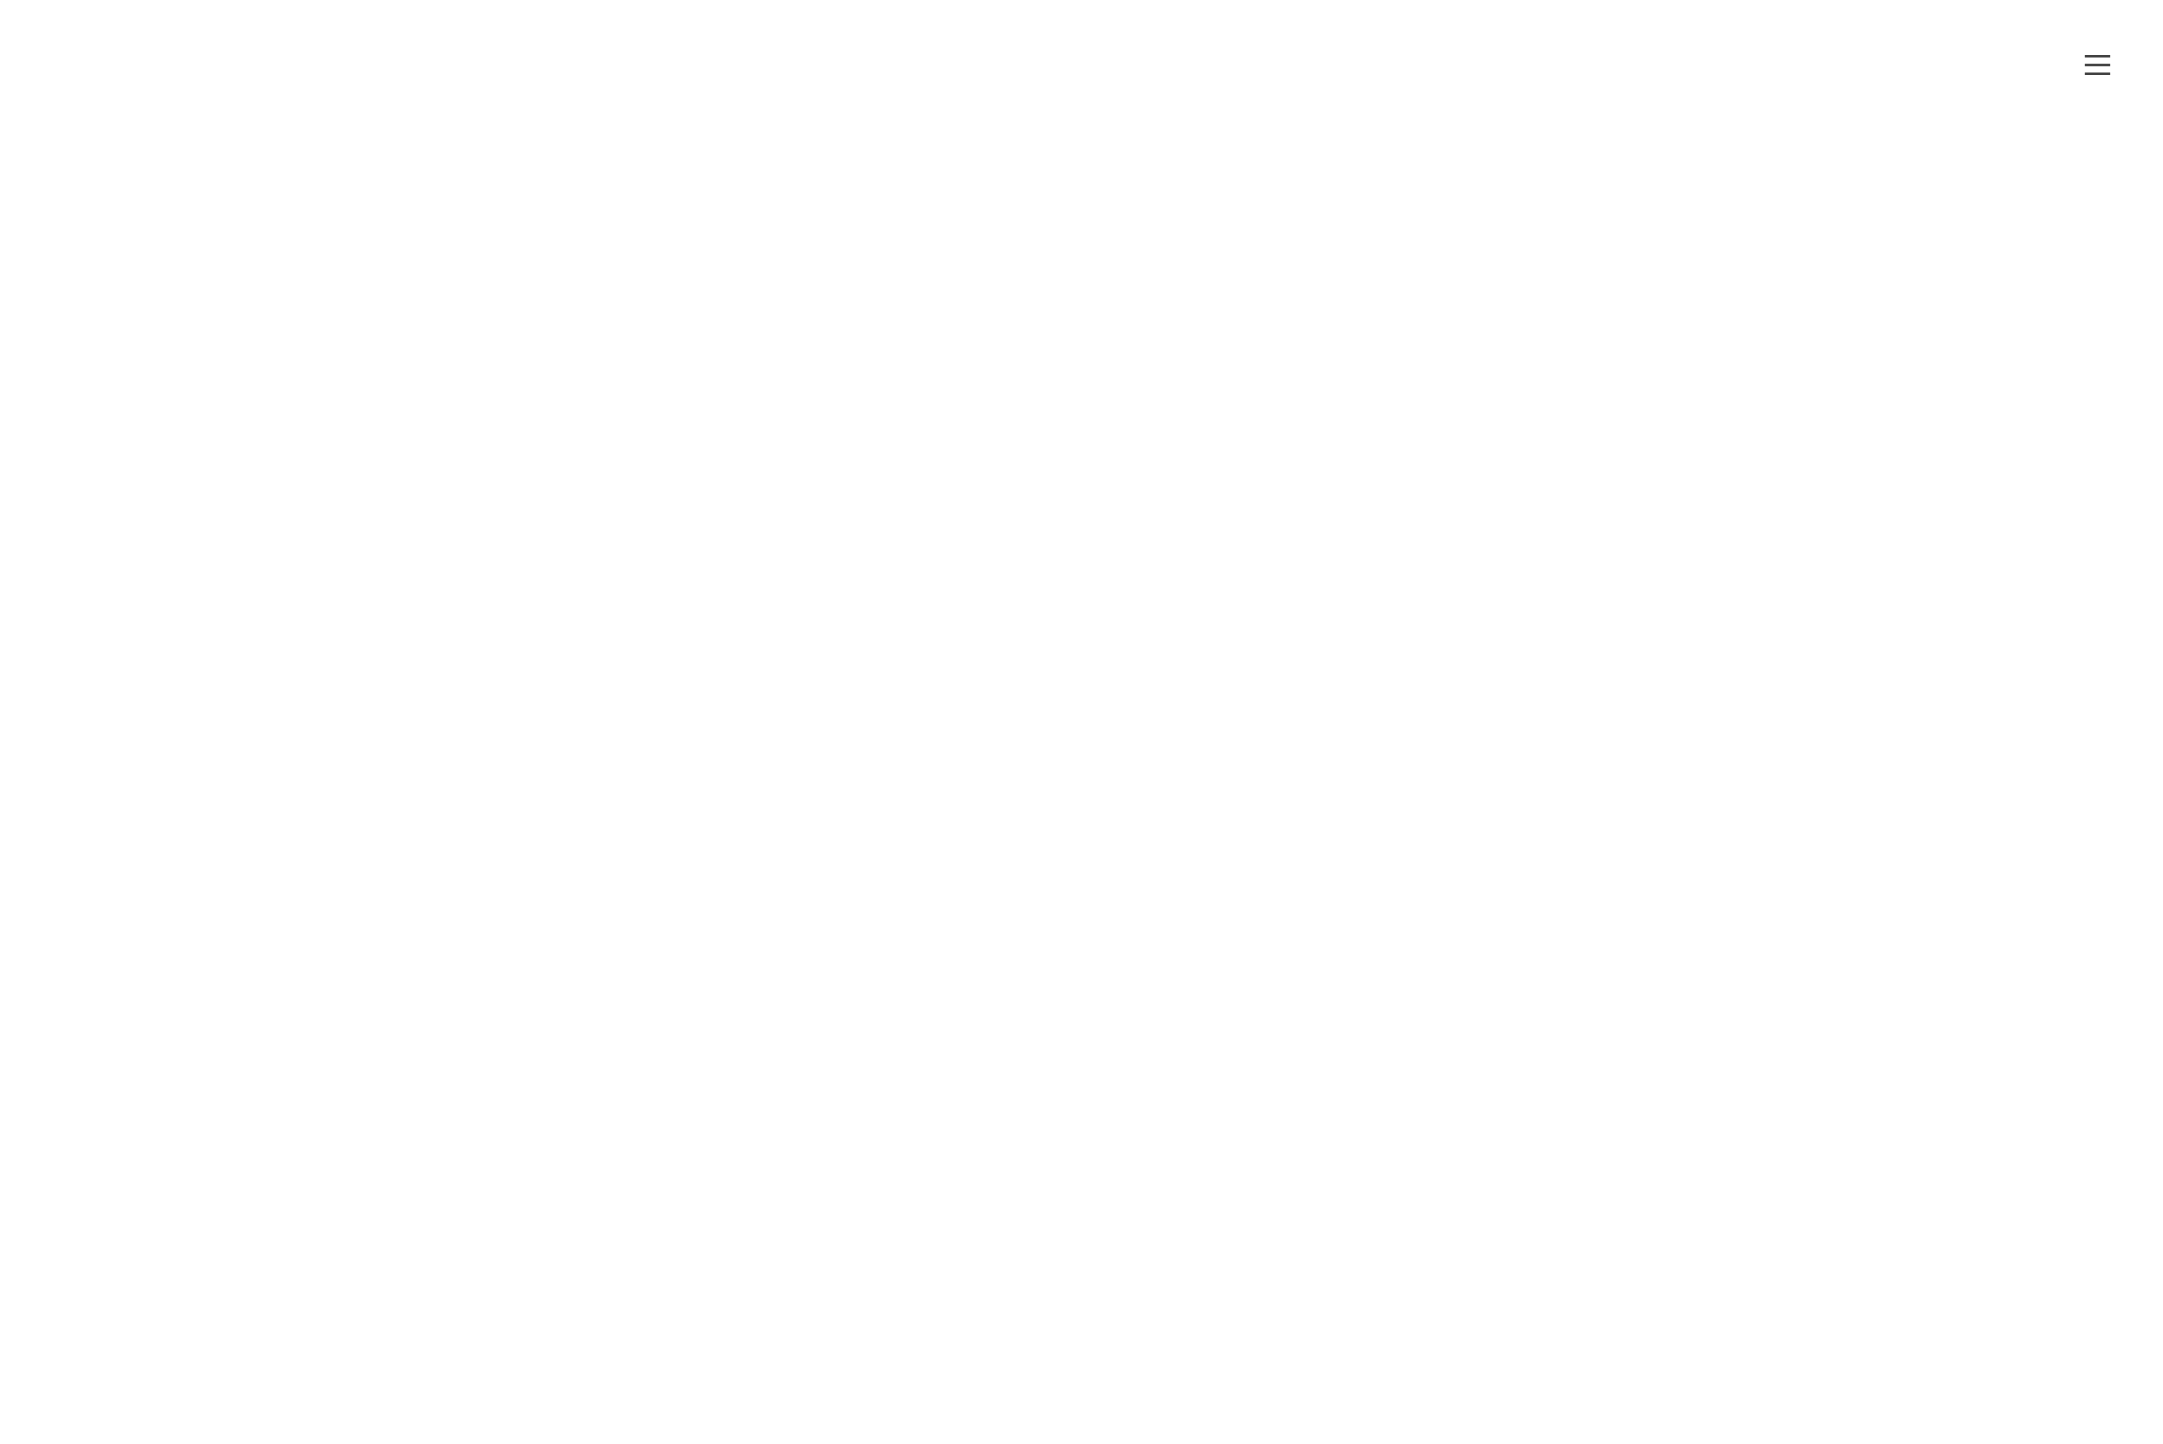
(async () => {
    const canvas = document.querySelector("canvas");
    canvas.width = 2163;
    canvas.height = 1444;
    const context = canvas.getContext("2d");
    context.miterLimit = 4;
    context.fontKerning = "normal";
    function block(x, y, w, h, color) {
        context.fillStyle = color;
        context.fillRect(x, y, w, h);
    }
    async function photo(src, x, y, w, h) {
        const img = new Image();
        img.src = src;
        await img.decode();
        context.drawImage(img, x, y, w, h);
    }

    block(0, 0, 2163, 1444, "rgb(255, 255, 255)");
    await photo("media/1.png", 2084, 55, 27, 20);
})();
